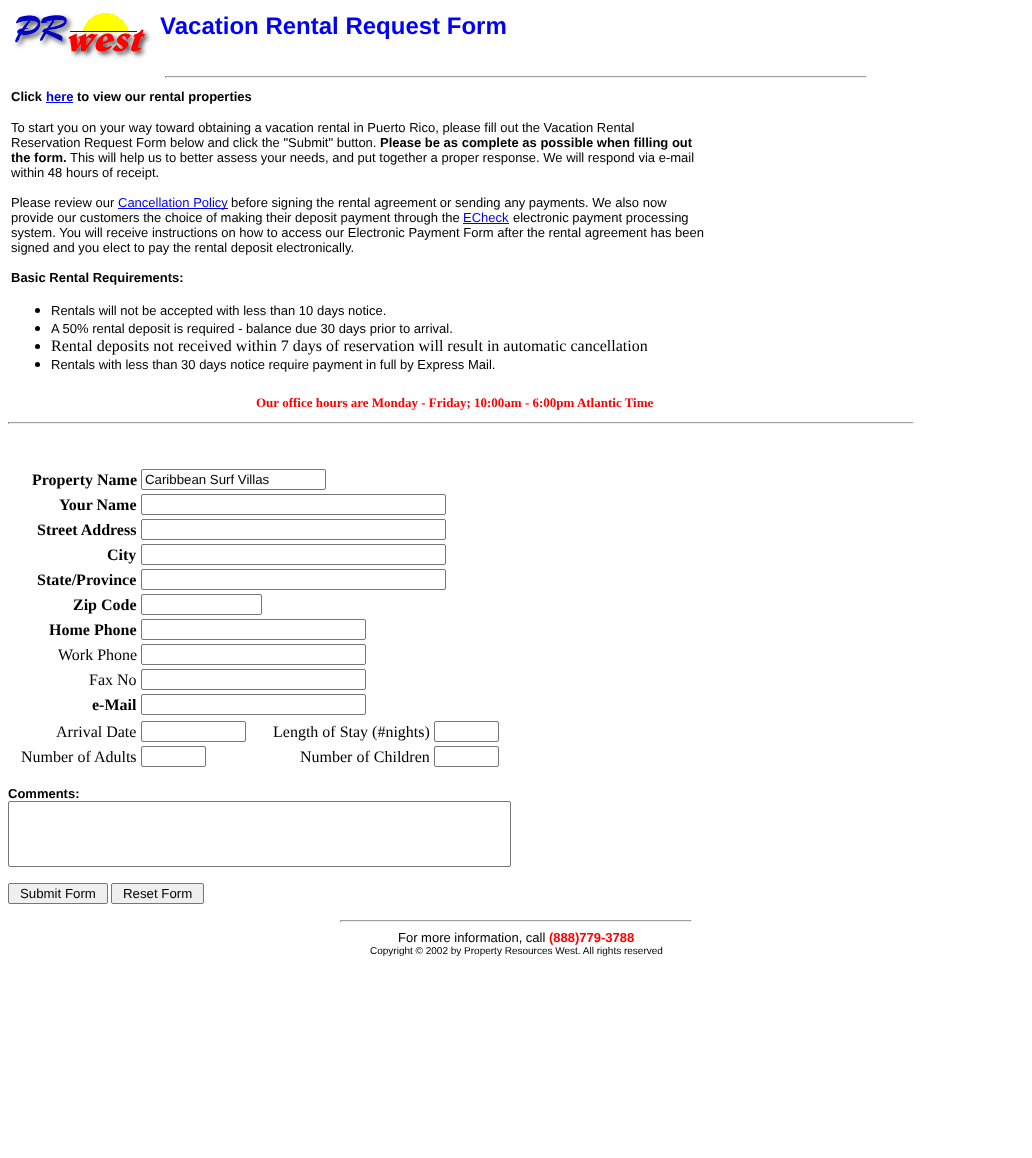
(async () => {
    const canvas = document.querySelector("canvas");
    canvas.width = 1032;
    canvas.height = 1158;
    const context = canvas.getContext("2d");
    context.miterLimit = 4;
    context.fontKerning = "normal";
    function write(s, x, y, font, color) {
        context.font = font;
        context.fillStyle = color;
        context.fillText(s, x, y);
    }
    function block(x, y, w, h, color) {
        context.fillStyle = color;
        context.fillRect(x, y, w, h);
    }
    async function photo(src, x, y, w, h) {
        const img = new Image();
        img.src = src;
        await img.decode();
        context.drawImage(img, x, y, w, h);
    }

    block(0, 0, 1032, 1158, "rgb(255, 255, 255)");
    await photo("media/1.png", 14, 13, 139, 47);
    write("Vacation Rental Request Form", 160, 34, "bold 24px Liberation Sans", "rgb(0, 0, 255)");
    block(165, 76, 702, 1, "rgb(159, 159, 159)");
    block(866, 76, 1, 2, "rgb(238, 238, 238)");
    block(165, 77, 702, 1, "rgb(238, 238, 238)");
    block(165, 76, 1, 2, "rgb(159, 159, 159)");
    write("Click", 11, 101, "bold 13px Liberation Sans", "rgb(0, 0, 0)");
    write("here", 46, 101, "bold 13px Liberation Sans", "rgb(0, 0, 238)");
    block(46, 102, 27, 1, "rgb(0, 0, 238)");
    write("to view our rental properties", 77, 101, "bold 13px Liberation Sans", "rgb(0, 0, 0)");
    write("To start you on your way toward obtaining a vacation rental in Puerto Rico, please fill out the Vacation Rental", 11, 132, "13px Liberation Sans", "rgb(0, 0, 0)");
    write("Reservation Request Form below and click the \"Submit\" button.", 11, 147, "13px Liberation Sans", "rgb(0, 0, 0)");
    write("Please be as complete as possible when filling out", 380, 147, "bold 13px Liberation Sans", "rgb(0, 0, 0)");
    write("the form.", 11, 162, "bold 13px Liberation Sans", "rgb(0, 0, 0)");
    write("This will help us to better assess your needs, and put together a proper response. We will respond via e-mail", 70, 162, "13px Liberation Sans", "rgb(0, 0, 0)");
    write("within 48 hours of receipt.", 11, 177, "13px Liberation Sans", "rgb(0, 0, 0)");
    write("Please review our", 11, 207, "13px Liberation Sans", "rgb(0, 0, 0)");
    block(118, 208, 110, 1, "rgb(0, 0, 238)");
    write("Cancellation Policy", 118, 207, "13px Liberation Sans", "rgb(0, 0, 238)");
    write("before signing the rental agreement or sending any payments. We also now", 231, 207, "13px Liberation Sans", "rgb(0, 0, 0)");
    write("provide our customers the choice of making their deposit payment through the", 11, 222, "13px Liberation Sans", "rgb(0, 0, 0)");
    write("ECheck", 463, 222, "13px Liberation Sans", "rgb(0, 0, 238)");
    block(463, 223, 46, 1, "rgb(0, 0, 238)");
    write("electronic payment processing", 513, 222, "13px Liberation Sans", "rgb(0, 0, 0)");
    write("system. You will receive instructions on how to access our Electronic Payment Form after the rental agreement has been", 11, 237, "13px Liberation Sans", "rgb(0, 0, 0)");
    write("signed and you elect to pay the rental deposit electronically.", 11, 252, "13px Liberation Sans", "rgb(0, 0, 0)");
    write("Basic Rental Requirements:", 11, 282, "bold 13px Liberation Sans", "rgb(0, 0, 0)");
    context.beginPath();
    context.arc(37.5, 310.5, 2.5, 0, Math.PI * 2);
    context.fill();
    write("Rentals will not be accepted with less than 10 days notice.", 51, 315, "13px Liberation Sans", "rgb(0, 0, 0)");
    context.beginPath();
    context.arc(37.5, 328.5, 2.5, 0, Math.PI * 2);
    context.fill();
    write("A 50% rental deposit is required - balance due 30 days prior to arrival.", 51, 333, "13px Liberation Sans", "rgb(0, 0, 0)");
    context.beginPath();
    context.arc(37.5, 346.5, 2.5, 0, Math.PI * 2);
    context.fill();
    write("Rental deposits not received within 7 days of reservation will result in automatic cancellation", 51, 351, "16px Liberation Serif", "rgb(0, 0, 0)");
    context.beginPath();
    context.arc(37.5, 364.5, 2.5, 0, Math.PI * 2);
    context.fill();
    write("Rentals with less than 30 days notice require payment in full by Express Mail.", 51, 369, "13px Liberation Sans", "rgb(0, 0, 0)");
    write("Our office hours are Monday - Friday; 10:00am - 6:00pm Atlantic Time", 256, 407, "bold 13px Liberation Serif", "rgb(255, 0, 0)");
    block(8, 422, 906, 1, "rgb(159, 159, 159)");
    block(913, 422, 1, 2, "rgb(238, 238, 238)");
    block(8, 423, 906, 1, "rgb(238, 238, 238)");
    block(8, 422, 1, 2, "rgb(159, 159, 159)");
    write("Property Name", 32, 485, "bold 16px Liberation Serif", "rgb(0, 0, 0)");
    context.beginPath();
    context.roundRect(141.5, 469.5, 184, 20, 1.5);
    context.strokeStyle = "rgb(118, 118, 118)";
    context.stroke();
    write("Caribbean Surf Villas", 145, 484, "13.25px Liberation Sans", "rgb(0, 0, 0)");
    write("Your Name", 59, 510, "bold 16px Liberation Serif", "rgb(0, 0, 0)");
    context.beginPath();
    context.roundRect(141.5, 494.5, 304, 20, 1.5);
    context.stroke();
    write("Street Address", 37, 535, "bold 16px Liberation Serif", "rgb(0, 0, 0)");
    context.beginPath();
    context.roundRect(141.5, 519.5, 304, 20, 1.5);
    context.stroke();
    write("City", 107, 560, "bold 16px Liberation Serif", "rgb(0, 0, 0)");
    context.beginPath();
    context.roundRect(141.5, 544.5, 304, 20, 1.5);
    context.stroke();
    write("State/Province", 37, 585, "bold 16px Liberation Serif", "rgb(0, 0, 0)");
    context.beginPath();
    context.roundRect(141.5, 569.5, 304, 20, 1.5);
    context.stroke();
    write("Zip Code", 73, 610, "bold 16px Liberation Serif", "rgb(0, 0, 0)");
    context.beginPath();
    context.roundRect(141.5, 594.5, 120, 20, 1.5);
    context.stroke();
    write("Home Phone", 49, 635, "bold 16px Liberation Serif", "rgb(0, 0, 0)");
    context.beginPath();
    context.roundRect(141.5, 619.5, 224, 20, 1.5);
    context.stroke();
    write("Work Phone", 58, 660, "16px Liberation Serif", "rgb(0, 0, 0)");
    context.beginPath();
    context.roundRect(141.5, 644.5, 224, 20, 1.5);
    context.stroke();
    write("Fax No", 89, 685, "16px Liberation Serif", "rgb(0, 0, 0)");
    context.beginPath();
    context.roundRect(141.5, 669.5, 224, 20, 1.5);
    context.stroke();
    write("e-Mail", 92, 710, "bold 16px Liberation Serif", "rgb(0, 0, 0)");
    context.beginPath();
    context.roundRect(141.5, 694.5, 224, 20, 1.5);
    context.stroke();
    write("Arrival Date", 56, 737, "16px Liberation Serif", "rgb(0, 0, 0)");
    context.beginPath();
    context.roundRect(141.5, 721.5, 104, 20, 1.5);
    context.stroke();
    write("Length of Stay (#nights)", 273, 737, "16px Liberation Serif", "rgb(0, 0, 0)");
    context.beginPath();
    context.roundRect(434.5, 721.5, 64, 20, 1.5);
    context.stroke();
    write("Number of Adults", 21, 762, "16px Liberation Serif", "rgb(0, 0, 0)");
    context.beginPath();
    context.roundRect(141.5, 746.5, 64, 20, 1.5);
    context.stroke();
    write("Number of Children", 300, 762, "16px Liberation Serif", "rgb(0, 0, 0)");
    context.beginPath();
    context.roundRect(434.5, 746.5, 64, 20, 1.5);
    context.stroke();
    write("Comments:", 8, 798, "bold 13px Liberation Sans", "rgb(0, 0, 0)");
    context.beginPath();
    context.roundRect(8.5, 801.5, 502, 65, 1.5);
    context.stroke();
    context.fillStyle = "rgb(239, 239, 239)";
    context.beginPath();
    context.roundRect(8.5, 883.5, 99, 20, 1.5);
    context.fill();
    context.stroke();
    write("Submit Form", 20, 898, "13.25px Liberation Sans", "rgb(0, 0, 0)");
    context.fillStyle = "rgb(239, 239, 239)";
    context.beginPath();
    context.roundRect(111.5, 883.5, 92, 20, 1.5);
    context.fill();
    context.stroke();
    write("Reset Form", 123, 898, "13.25px Liberation Sans", "rgb(0, 0, 0)");
    block(340, 920, 352, 1, "rgb(159, 159, 159)");
    block(691, 920, 1, 2, "rgb(238, 238, 238)");
    block(340, 921, 352, 1, "rgb(238, 238, 238)");
    block(340, 920, 1, 2, "rgb(159, 159, 159)");
    write("For more information, call", 398, 942, "13px Liberation Sans", "rgb(0, 0, 0)");
    write("(888)779-3788", 549, 942, "bold 13px Liberation Sans", "rgb(255, 0, 0)");
    write("Copyright © 2002 by Property Resources West. All rights reserved", 370, 954, "10px Liberation Sans", "rgb(0, 0, 0)");
})();
